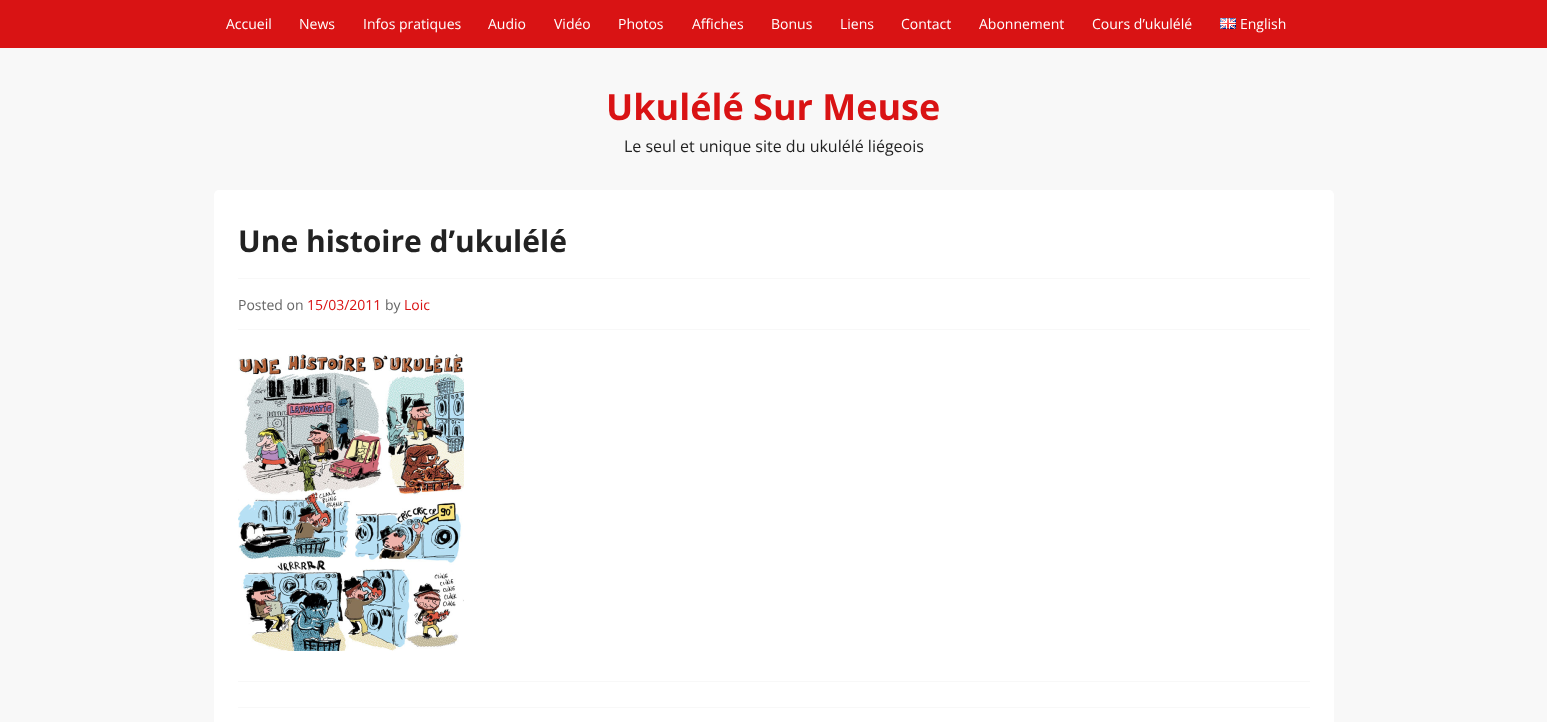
(async () => {
    const canvas = document.querySelector("canvas");
    canvas.width = 1547;
    canvas.height = 722;
    const context = canvas.getContext("2d");
    context.miterLimit = 4;
    context.fontKerning = "normal";
    function write(s, x, y, font, color) {
        context.font = font;
        context.fillStyle = color;
        context.fillText(s, x, y);
    }
    function block(x, y, w, h, color) {
        context.fillStyle = color;
        context.fillRect(x, y, w, h);
    }
    function card(x, y, w, h, r, color) {
        context.fillStyle = color;
        context.beginPath();
        context.roundRect(x, y, w, h, r);
        context.fill();
    }
    async function photo(src, x, y, w, h) {
        const img = new Image();
        img.src = src;
        await img.decode();
        context.drawImage(img, x, y, w, h);
    }

    block(0, 0, 1547, 722, "rgb(248, 248, 248)");
    block(0, 0, 1547, 48, "rgb(217, 19, 20)");
    write("Accueil", 226, 29, "14px Open Sans", "rgb(255, 255, 255)");
    write("News", 299, 29, "14px Open Sans", "rgb(255, 255, 255)");
    write("Infos pratiques", 363, 29, "14px Open Sans", "rgb(255, 255, 255)");
    write("Audio", 488, 29, "14px Open Sans", "rgb(255, 255, 255)");
    write("Vidéo", 554, 29, "14px Open Sans", "rgb(255, 255, 255)");
    write("Photos", 618, 29, "14px Open Sans", "rgb(255, 255, 255)");
    write("Affiches", 692, 29, "14px Open Sans", "rgb(255, 255, 255)");
    write("Bonus", 771, 29, "14px Open Sans", "rgb(255, 255, 255)");
    write("Liens", 840, 29, "14px Open Sans", "rgb(255, 255, 255)");
    write("Contact", 901, 29, "14px Open Sans", "rgb(255, 255, 255)");
    write("Abonnement", 979, 29, "14px Open Sans", "rgb(255, 255, 255)");
    write("Cours d’ukulélé", 1092, 29, "14px Open Sans", "rgb(255, 255, 255)");
    await photo("media/1.png", 1220, 18, 16, 11);
    write("English", 1240, 29, "14px Open Sans", "rgb(255, 255, 255)");
    write("Ukulélé Sur Meuse", 606, 120, "bold 36px Open Sans", "rgb(217, 19, 20)");
    write("Le seul et unique site du ukulélé liégeois", 624, 152, "16px Open Sans", "rgb(34, 34, 34)");
    card(214, 190, 1120, 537, 5, "rgb(255, 255, 255)");
    block(238, 278, 1072, 1, "rgb(248, 248, 248)");
    write("Une histoire d’ukulélé", 238, 252, "bold 30px Open Sans", "rgb(34, 34, 34)");
    block(238, 329, 1072, 1, "rgb(248, 248, 248)");
    write("Posted on", 238, 310, "14px Open Sans", "rgb(102, 102, 102)");
    write("15/03/2011", 307, 310, "14px Open Sans", "rgb(217, 19, 20)");
    write("by", 385, 310, "14px Open Sans", "rgb(102, 102, 102)");
    write("Loic", 404, 310, "14px Open Sans", "rgb(217, 19, 20)");
    block(238, 681, 1072, 1, "rgb(248, 248, 248)");
    await photo("media/2.png", 238, 354, 226, 297);
    block(238, 707, 1072, 1, "rgb(248, 248, 248)");
})();
